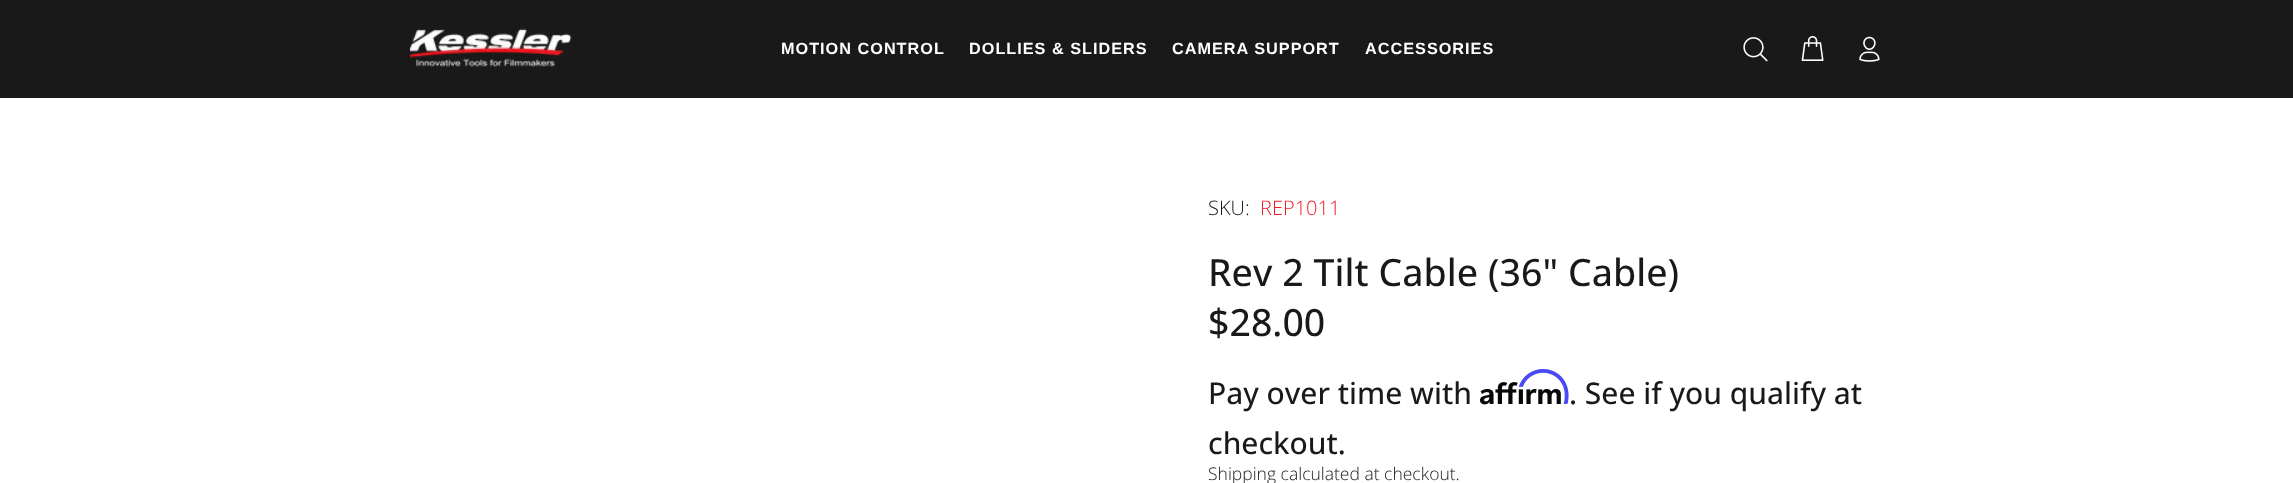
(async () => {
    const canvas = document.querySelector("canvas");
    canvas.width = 2293;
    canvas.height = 483;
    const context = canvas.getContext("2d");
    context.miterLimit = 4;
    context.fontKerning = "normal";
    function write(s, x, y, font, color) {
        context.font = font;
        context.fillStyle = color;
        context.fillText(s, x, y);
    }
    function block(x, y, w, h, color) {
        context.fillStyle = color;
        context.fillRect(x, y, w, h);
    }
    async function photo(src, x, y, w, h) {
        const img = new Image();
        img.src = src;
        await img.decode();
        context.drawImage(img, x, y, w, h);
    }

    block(0, 0, 2293, 483, "rgb(255, 255, 255)");
    block(0, 0, 2293, 98, "rgb(25, 25, 25)");
    await photo("media/1.png", 410, 28, 162, 39);
    context.letterSpacing = "1px";
    write("MOTION CONTROL", 781, 54, "bold 16.25px Liberation Sans", "rgb(255, 255, 255)");
    write("DOLLIES & SLIDERS", 969, 54, "bold 16.25px Liberation Sans", "rgb(255, 255, 255)");
    write("CAMERA SUPPORT", 1172, 54, "bold 16.25px Liberation Sans", "rgb(255, 255, 255)");
    write("ACCESSORIES", 1365, 54, "bold 16.25px Liberation Sans", "rgb(255, 255, 255)");
    await photo("media/2.png", 1743, 37, 25, 25);
    await photo("media/3.png", 1801, 36, 23, 25);
    await photo("media/4.png", 1859, 36, 21, 26);
    context.letterSpacing = "0px";
    write("SKU:", 1208, 215, "300 20px Open Sans", "rgb(25, 25, 25)");
    write("REP1011", 1260, 215, "300 20px Open Sans", "rgb(237, 27, 36)");
    context.letterSpacing = "0.05px";
    write("Rev 2 Tilt Cable (36\" Cable)", 1208, 286, "500 37.5px Open Sans", "rgb(25, 25, 25)");
    context.letterSpacing = "0px";
    write("$28.00", 1208, 336, "500 37.5px Open Sans", "rgb(25, 25, 25)");
    write("Pay over time with", 1208, 404, "500 30px Open Sans", "rgb(25, 25, 25)");
    await photo("media/6.png", 1480, 382, 81, 23);
    await photo("media/5.png", 1518, 369, 51, 35);
    write(". See if you qualify at", 1569, 404, "500 30px Open Sans", "rgb(25, 25, 25)");
    write("checkout.", 1208, 454, "500 30px Open Sans", "rgb(25, 25, 25)");
    write("Shipping calculated at checkout.", 1208, 480, "300 17.5px Open Sans", "rgb(25, 25, 25)");
})();
